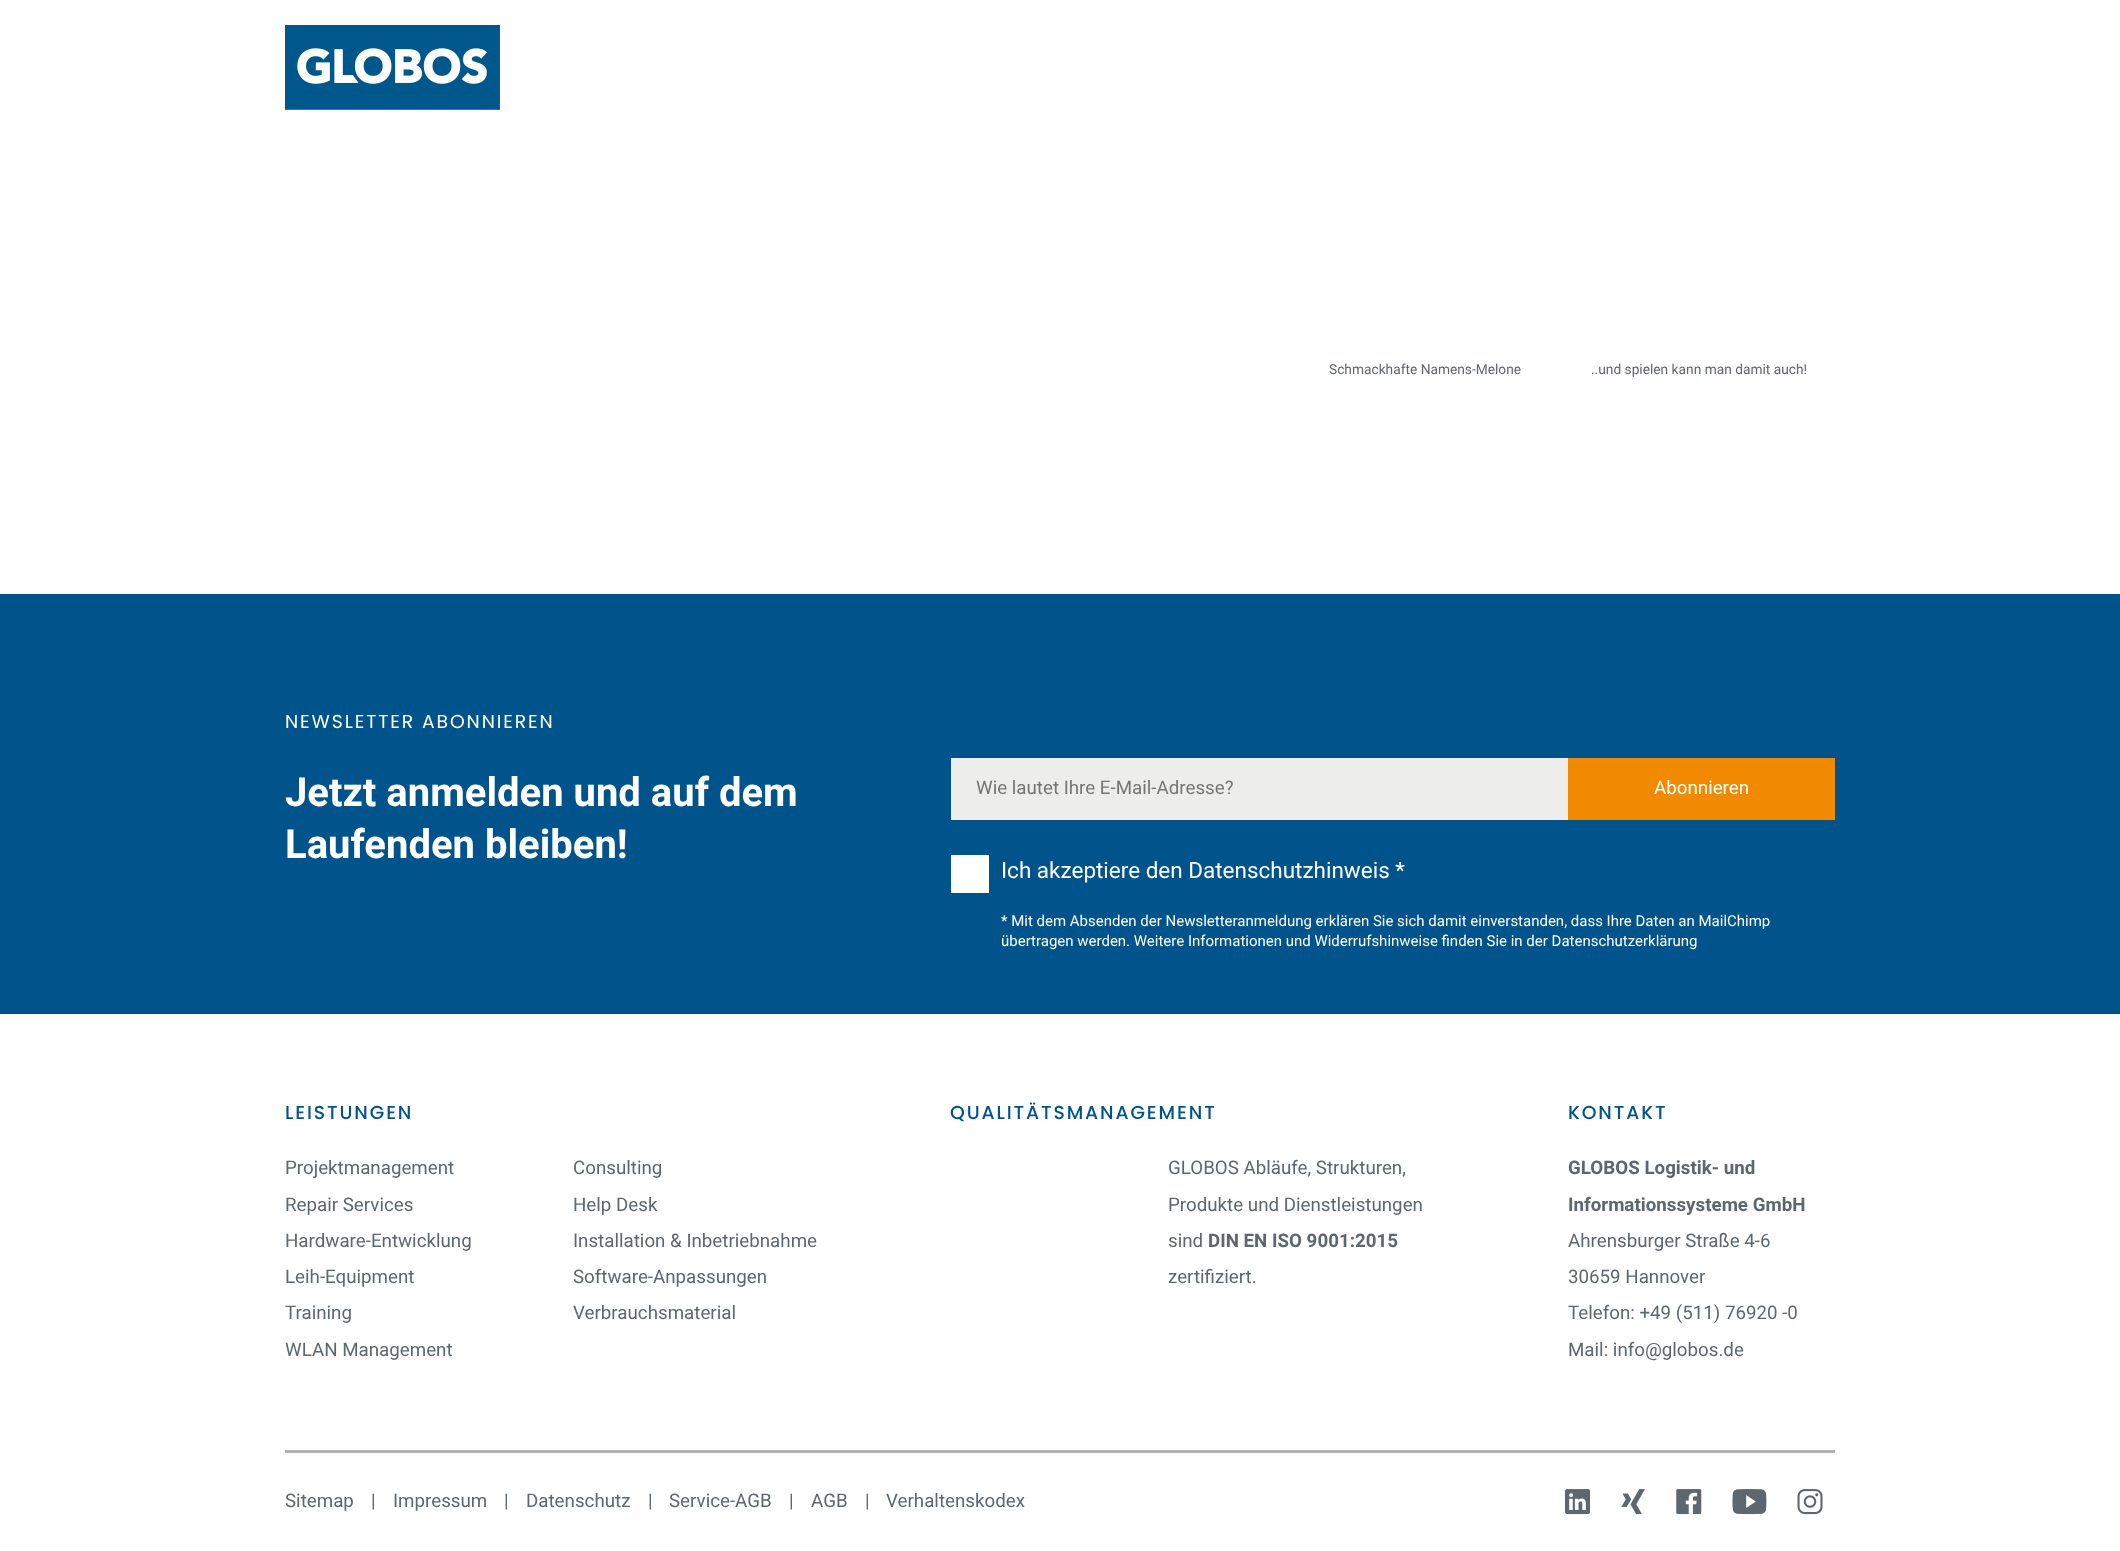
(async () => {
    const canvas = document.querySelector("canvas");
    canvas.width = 2120;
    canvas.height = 1551;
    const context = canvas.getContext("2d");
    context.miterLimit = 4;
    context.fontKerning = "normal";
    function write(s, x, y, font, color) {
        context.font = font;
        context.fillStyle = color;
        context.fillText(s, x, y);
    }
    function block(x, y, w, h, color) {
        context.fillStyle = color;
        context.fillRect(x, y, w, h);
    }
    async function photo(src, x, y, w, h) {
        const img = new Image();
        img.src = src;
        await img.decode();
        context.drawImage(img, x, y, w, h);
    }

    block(0, 0, 2120, 1551, "rgb(255, 255, 255)");
    await photo("media/1.png", 285, 25, 215, 85);
    write("Schmackhafte Namens-Melone", 1329, 374, "13.75px Roboto", "rgb(93, 103, 112)");
    write("..und spielen kann man damit auch!", 1591, 374, "13.75px Roboto", "rgb(93, 103, 112)");
    block(0, 594, 2120, 420, "rgb(0, 84, 139)");
    context.letterSpacing = "1.9px";
    write("NEWSLETTER ABONNIEREN", 285, 728, "18.75px Poppins", "rgb(255, 255, 255)");
    context.letterSpacing = "0px";
    write("Jetzt anmelden und auf dem", 285, 806, "bold 40px Roboto", "rgb(255, 255, 255)");
    write("Laufenden bleiben!", 285, 858, "bold 40px Roboto", "rgb(255, 255, 255)");
    block(951, 758, 617, 62, "rgb(237, 237, 236)");
    write("Wie lautet Ihre E-Mail-Adresse?", 976, 794, "18.75px Roboto", "rgb(117, 117, 117)");
    block(1568, 758, 267, 62, "rgb(241, 138, 0)");
    write("Abonnieren", 1654, 794, "18.75px Roboto", "rgb(255, 255, 255)");
    block(951, 855, 38, 38, "rgb(255, 255, 255)");
    write("Ich akzeptiere den Datenschutzhinweis *", 1001, 878, "22.5px Roboto", "rgb(255, 255, 255)");
    write("* Mit dem Absenden der Newsletteranmeldung erklären Sie sich damit einverstanden, dass Ihre Daten an MailChimp", 1001, 926, "15px Roboto", "rgb(255, 255, 255)");
    write("übertragen werden. Weitere Informationen und Widerrufshinweise finden Sie in der Datenschutzerklärung", 1001, 946, "15px Roboto", "rgb(255, 255, 255)");
    context.letterSpacing = "1.9px";
    write("LEISTUNGEN", 285, 1119, "500 18.75px Poppins", "rgb(0, 84, 139)");
    context.letterSpacing = "0px";
    write("Projektmanagement", 285, 1174, "18.75px Roboto", "rgb(93, 103, 112)");
    write("Consulting", 573, 1174, "18.75px Roboto", "rgb(93, 103, 112)");
    write("Repair Services", 285, 1211, "18.75px Roboto", "rgb(93, 103, 112)");
    write("Help Desk", 573, 1211, "18.75px Roboto", "rgb(93, 103, 112)");
    write("Hardware-Entwicklung", 285, 1247, "18.75px Roboto", "rgb(93, 103, 112)");
    write("Installation & Inbetriebnahme", 573, 1247, "18.75px Roboto", "rgb(93, 103, 112)");
    write("Leih-Equipment", 285, 1283, "18.75px Roboto", "rgb(93, 103, 112)");
    write("Software-Anpassungen", 573, 1283, "18.75px Roboto", "rgb(93, 103, 112)");
    write("Training", 285, 1319, "18.75px Roboto", "rgb(93, 103, 112)");
    write("Verbrauchsmaterial", 573, 1319, "18.75px Roboto", "rgb(93, 103, 112)");
    write("WLAN Management", 285, 1356, "18.75px Roboto", "rgb(93, 103, 112)");
    context.letterSpacing = "1.9px";
    write("QUALITÄTSMANAGEMENT", 950, 1119, "500 18.75px Poppins", "rgb(0, 84, 139)");
    context.letterSpacing = "0px";
    write("GLOBOS Abläufe, Strukturen,", 1168, 1174, "18.75px Roboto", "rgb(93, 103, 112)");
    write("Produkte und Dienstleistungen", 1168, 1211, "18.75px Roboto", "rgb(93, 103, 112)");
    write("sind", 1168, 1247, "18.75px Roboto", "rgb(93, 103, 112)");
    write("DIN EN ISO 9001:2015", 1208, 1247, "bold 18.75px Roboto", "rgb(93, 103, 112)");
    write("zertifiziert.", 1168, 1283, "18.75px Roboto", "rgb(93, 103, 112)");
    context.letterSpacing = "1.9px";
    write("KONTAKT", 1568, 1119, "500 18.75px Poppins", "rgb(0, 84, 139)");
    context.letterSpacing = "0px";
    write("GLOBOS Logistik- und", 1568, 1174, "bold 18.75px Roboto", "rgb(93, 103, 112)");
    write("Informationssysteme GmbH", 1568, 1211, "bold 18.75px Roboto", "rgb(93, 103, 112)");
    write("Ahrensburger Straße 4-6", 1568, 1247, "18.75px Roboto", "rgb(93, 103, 112)");
    write("30659 Hannover", 1568, 1283, "18.75px Roboto", "rgb(93, 103, 112)");
    write("Telefon: +49 (511) 76920 -0", 1568, 1319, "18.75px Roboto", "rgb(93, 103, 112)");
    write("Mail: info@globos.de", 1568, 1356, "18.75px Roboto", "rgb(93, 103, 112)");
    block(285, 1450, 1550, 3, "rgb(174, 179, 184)");
    write("Sitemap", 285, 1507, "18.75px Roboto", "rgb(93, 103, 112)");
    write("|", 371, 1507, "18.75px Roboto", "rgb(93, 103, 112)");
    write("Impressum", 393, 1507, "18.75px Roboto", "rgb(93, 103, 112)");
    write("|", 504, 1507, "18.75px Roboto", "rgb(93, 103, 112)");
    write("Datenschutz", 526, 1507, "18.75px Roboto", "rgb(93, 103, 112)");
    write("|", 648, 1507, "18.75px Roboto", "rgb(93, 103, 112)");
    write("Service-AGB", 669, 1507, "18.75px Roboto", "rgb(93, 103, 112)");
    write("|", 789, 1507, "18.75px Roboto", "rgb(93, 103, 112)");
    write("AGB", 811, 1507, "18.75px Roboto", "rgb(93, 103, 112)");
    write("|", 865, 1507, "18.75px Roboto", "rgb(93, 103, 112)");
    write("Verhaltenskodex", 886, 1507, "18.75px Roboto", "rgb(93, 103, 112)");
    await photo("media/2.png", 1565, 1489, 25, 26);
    await photo("media/3.png", 1621, 1489, 24, 26);
    await photo("media/4.png", 1676, 1489, 26, 26);
    await photo("media/5.png", 1732, 1489, 35, 26);
    await photo("media/6.png", 1797, 1489, 26, 26);
})();
